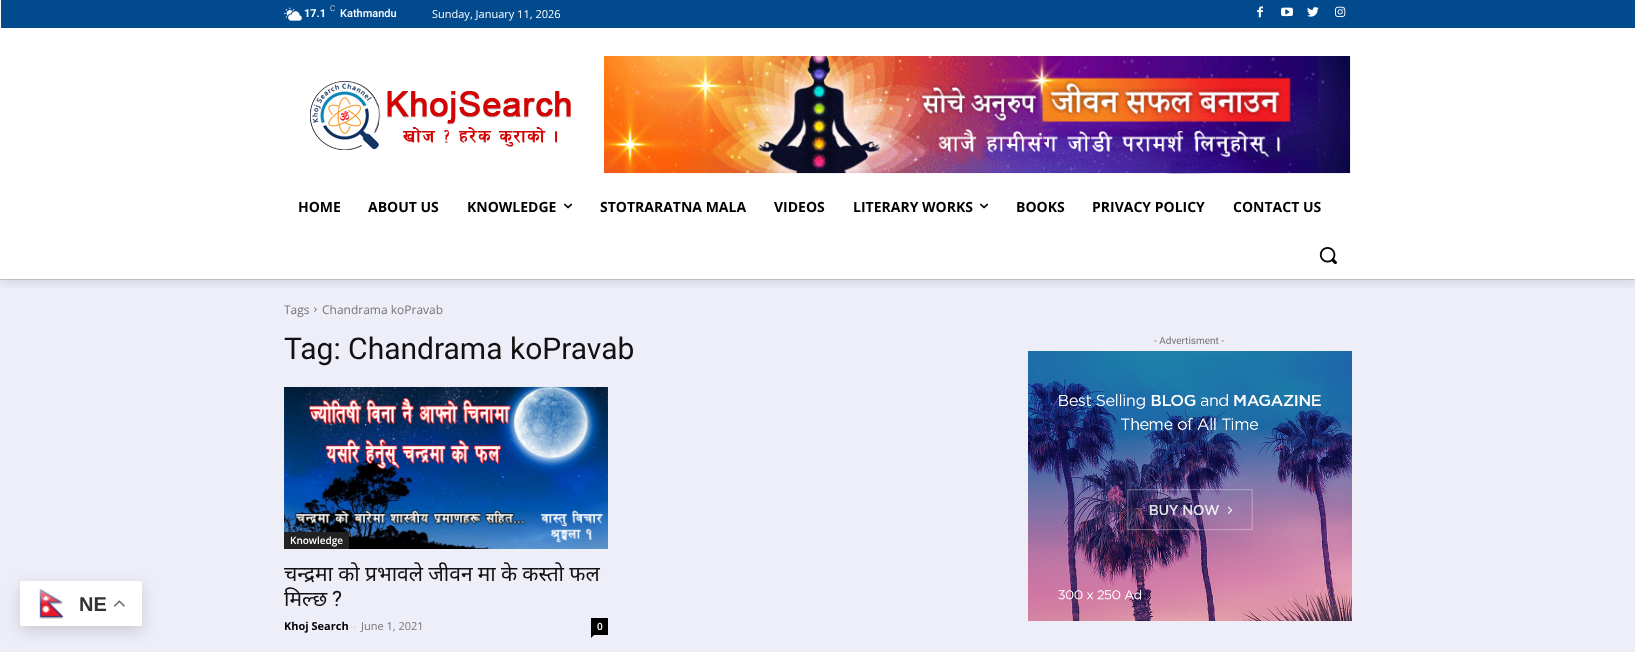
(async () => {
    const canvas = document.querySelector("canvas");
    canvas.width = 1635;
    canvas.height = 652;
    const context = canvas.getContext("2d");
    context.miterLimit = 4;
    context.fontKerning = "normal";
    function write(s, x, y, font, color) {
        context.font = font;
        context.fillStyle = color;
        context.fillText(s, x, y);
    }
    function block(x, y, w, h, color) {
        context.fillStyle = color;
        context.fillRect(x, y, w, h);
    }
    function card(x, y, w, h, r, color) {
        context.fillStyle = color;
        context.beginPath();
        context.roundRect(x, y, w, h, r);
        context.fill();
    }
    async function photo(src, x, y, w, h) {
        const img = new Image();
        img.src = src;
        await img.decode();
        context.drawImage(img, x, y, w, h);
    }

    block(0, 0, 1635, 652, "rgb(255, 255, 255)");
    block(0, 280, 1635, 372, "rgb(238, 238, 249)");
    context.fillStyle = "rgba(0, 0, 0, 0.15)";
    context.filter = "blur(7.5px)";
    context.beginPath();
    context.roundRect(20, 586, 122, 45, 2);
    context.fill();
    context.filter = "none";
    card(20, 581, 122, 45, 2, "rgb(255, 255, 255)");
    await photo("media/1.png", 39, 589, 25, 30);
    write("NE", 79, 611, "bold 20px Liberation Sans", "rgb(51, 51, 51)");
    await photo("media/2.png", 114, 600, 11, 7);
    block(0, 279, 1635, 1, "rgb(204, 204, 204)");
    block(1, 0, 1634, 28, "rgb(0, 74, 141)");
    await photo("media/3.png", 284, 7, 18, 14);
    await photo("media/4.png", 1257, 6, 6, 12);
    await photo("media/5.png", 1281, 7, 12, 10);
    await photo("media/6.png", 1307, 7, 12, 10);
    await photo("media/7.png", 1335, 6, 11, 11);
    await photo("media/8.png", 310, 81, 261, 69);
    await photo("media/9.png", 604, 56, 747, 118);
    context.save();
    context.beginPath();
    context.rect(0, 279, 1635, 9);
    context.clip();
    context.fillStyle = "rgba(0, 0, 0, 0.08)";
    context.filter = "blur(4px)";
    context.beginPath();
    context.rect(1, 6, 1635, 279);
    context.fill();
    context.filter = "none";
    context.restore();
    write("17.1", 304, 17, "bold 11px Roboto", "rgb(255, 255, 255)");
    write("C", 330, 11, "300 8px Roboto", "rgb(255, 255, 255)");
    write("Kathmandu", 340, 17, "500 11px Roboto", "rgb(255, 255, 255)");
    write("Sunday, January 11, 2026", 432, 18, "11px Open Sans", "rgb(255, 255, 255)");
    write("HOME", 298, 212, "bold 14px Open Sans", "rgb(0, 0, 0)");
    write("ABOUT US", 368, 212, "bold 14px Open Sans", "rgb(0, 0, 0)");
    write("KNOWLEDGE", 467, 212, "bold 14px Open Sans", "rgb(0, 0, 0)");
    await photo("media/10.png", 564, 203, 9, 6);
    write("STOTRARATNA MALA", 600, 212, "bold 14px Open Sans", "rgb(0, 0, 0)");
    write("VIDEOS", 774, 212, "bold 14px Open Sans", "rgb(0, 0, 0)");
    write("LITERARY WORKS", 853, 212, "bold 14px Open Sans", "rgb(0, 0, 0)");
    await photo("media/10.png", 980, 203, 9, 6);
    write("BOOKS", 1016, 212, "bold 14px Open Sans", "rgb(0, 0, 0)");
    write("PRIVACY POLICY", 1092, 212, "bold 14px Open Sans", "rgb(0, 0, 0)");
    write("CONTACT US", 1233, 212, "bold 14px Open Sans", "rgb(0, 0, 0)");
    await photo("media/11.png", 1319, 247, 18, 18);
    write("Tags", 284, 314, "12px Open Sans", "rgb(116, 116, 116)");
    await photo("media/12.png", 314, 307, 3, 5);
    write("Chandrama koPravab", 322, 314, "12px Open Sans", "rgb(116, 116, 116)");
    write("Tag: Chandrama koPravab", 284, 359, "30px Roboto", "rgb(17, 17, 17)");
    await photo("media/13.png", 284, 387, 324, 162);
    block(284, 532, 65, 17, "rgb(34, 34, 34)");
    write("Knowledge", 290, 544, "600 10px Open Sans", "rgb(255, 255, 255)");
    context.wordSpacing = "-0.25px";
    write("चन्द्रमा को प्रभावले जीवन मा के कस्तो फल", 284, 581, "21px Noto Sans", "rgb(17, 17, 17)");
    context.wordSpacing = "0px";
    write("मिल्छ", 284, 606, "21px Noto Sans", "rgb(17, 17, 17)");
    write("?", 332, 606, "21px Roboto", "rgb(17, 17, 17)");
    write("Khoj Search", 284, 630, "bold 11px Open Sans", "rgb(0, 0, 0)");
    write("-", 353, 630, "11px Open Sans", "rgb(204, 204, 204)");
    write("June 1, 2021", 361, 630, "11px Open Sans", "rgb(116, 116, 116)");
    block(591, 618, 17, 17, "rgb(0, 0, 0)");
    write("0", 597, 630, "600 10px Open Sans", "rgb(255, 255, 255)");
    context.fillStyle = "rgb(0, 0, 0)";
    context.beginPath();
    context.moveTo(591, 635);
    context.lineTo(594, 635);
    context.lineTo(591, 638);
    context.closePath();
    context.fill();
    write("- Advertisment -", 1154, 344, "10px Roboto", "rgb(116, 116, 116)");
    await photo("media/14.png", 1028, 351, 324, 270);
})();
